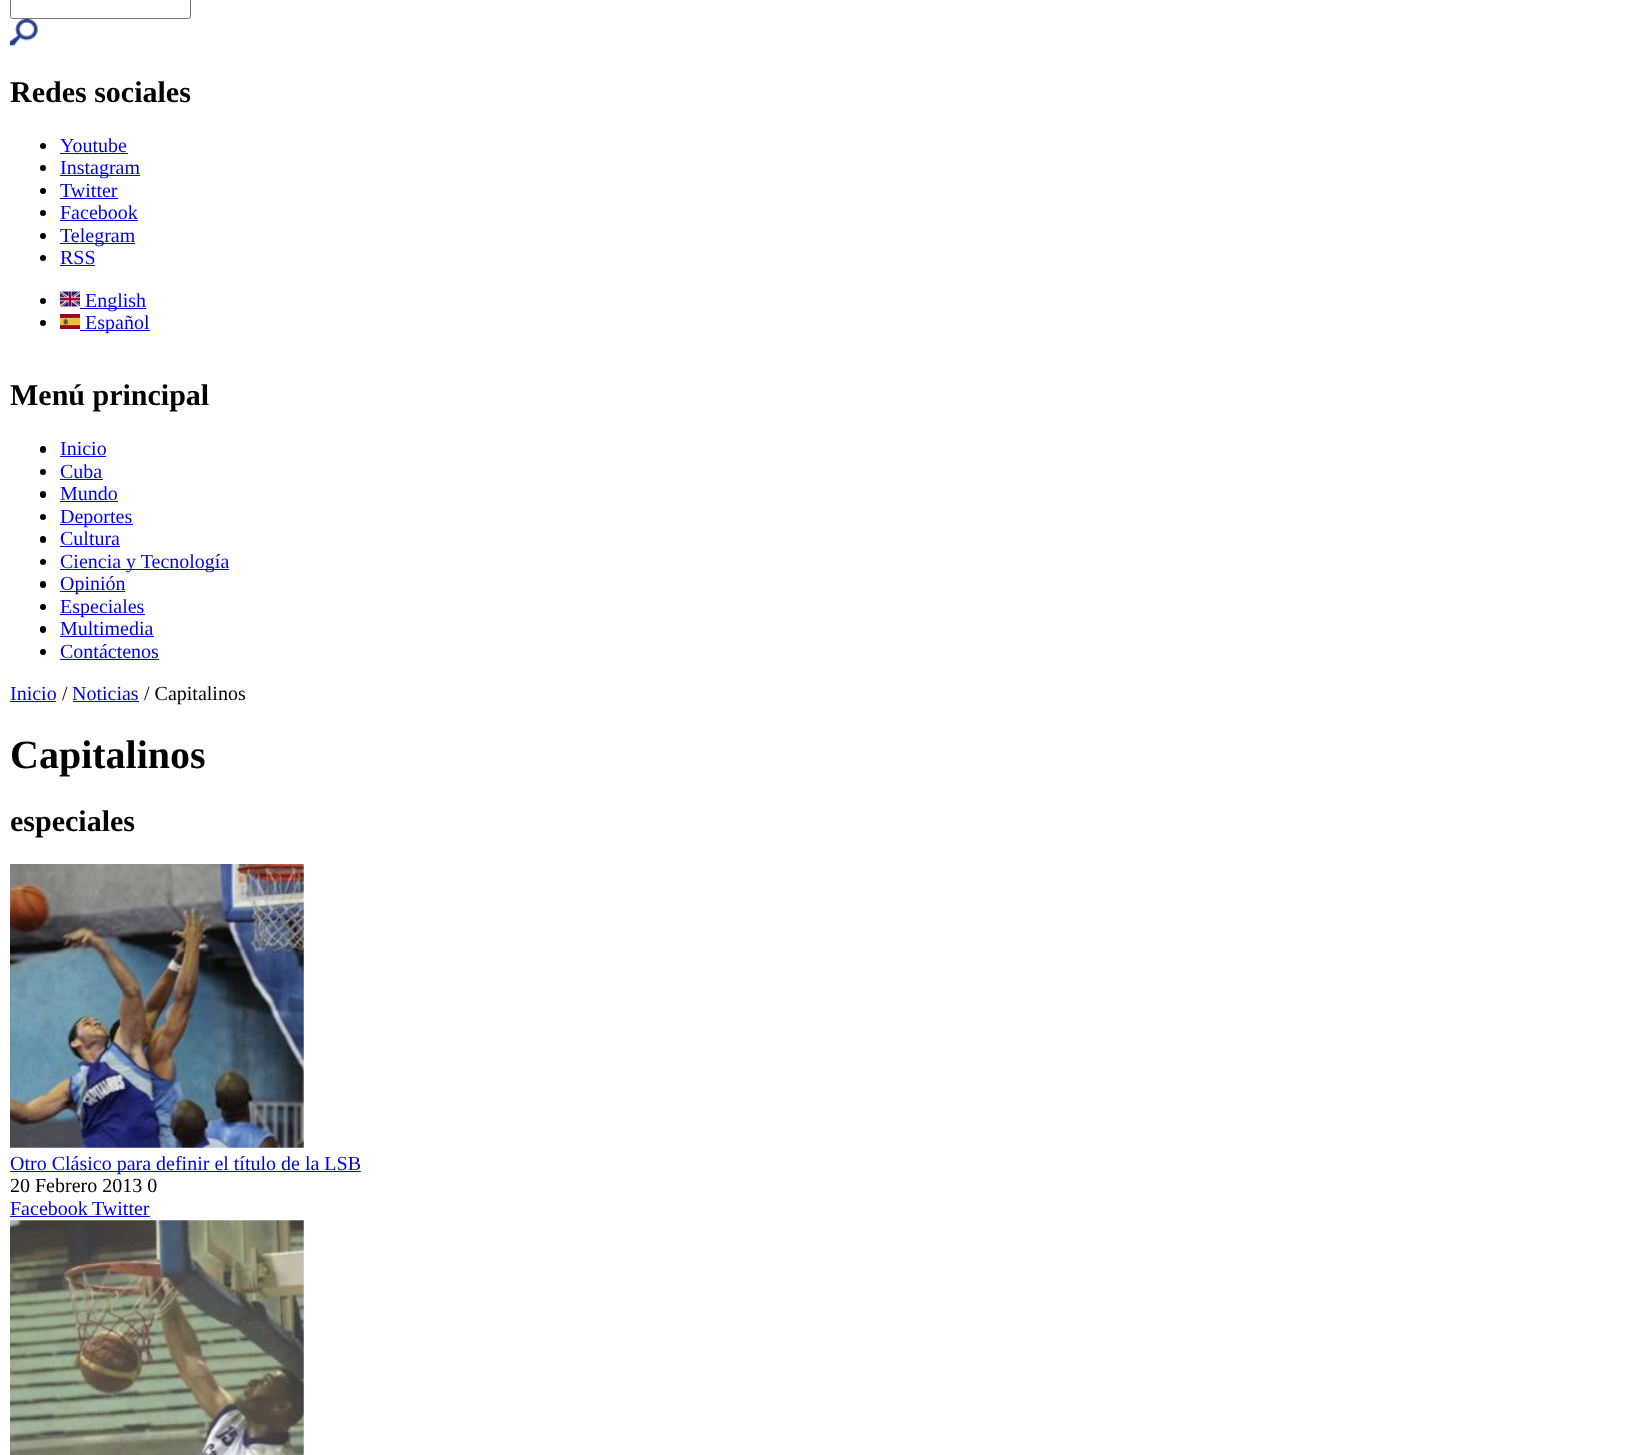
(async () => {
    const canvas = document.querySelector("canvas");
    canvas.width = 1634;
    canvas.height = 1455;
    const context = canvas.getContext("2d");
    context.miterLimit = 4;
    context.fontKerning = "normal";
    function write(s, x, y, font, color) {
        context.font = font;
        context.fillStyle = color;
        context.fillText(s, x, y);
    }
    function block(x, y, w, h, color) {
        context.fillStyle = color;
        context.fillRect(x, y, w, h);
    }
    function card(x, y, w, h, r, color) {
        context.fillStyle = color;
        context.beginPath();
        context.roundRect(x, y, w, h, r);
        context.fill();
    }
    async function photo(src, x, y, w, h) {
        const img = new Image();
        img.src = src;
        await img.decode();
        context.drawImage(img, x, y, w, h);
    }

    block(0, 0, 1634, 1455, "rgb(255, 255, 255)");
    context.beginPath();
    context.roundRect(10.5, -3.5, 180, 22, 2);
    context.strokeStyle = "rgb(118, 118, 118)";
    context.stroke();
    await photo("media/1.png", 10, 19, 28, 27);
    write("Redes sociales", 10, 102, "bold 30px Liberation Serif", "rgb(0, 0, 0)");
    context.beginPath();
    context.arc(43, 146, 3, 0, Math.PI * 2);
    context.fill();
    write("Youtube", 60, 152, "20px Liberation Serif", "rgb(0, 0, 238)");
    block(60, 153, 68, 1, "rgb(0, 0, 238)");
    context.fillStyle = "rgb(0, 0, 0)";
    context.beginPath();
    context.arc(43, 168, 3, 0, Math.PI * 2);
    context.fill();
    block(60, 175, 80, 1, "rgb(0, 0, 238)");
    write("Instagram", 60, 174, "20px Liberation Serif", "rgb(0, 0, 238)");
    context.fillStyle = "rgb(0, 0, 0)";
    context.beginPath();
    context.arc(43, 191, 3, 0, Math.PI * 2);
    context.fill();
    write("Twitter", 60, 197, "20px Liberation Serif", "rgb(0, 0, 238)");
    block(60, 198, 58, 1, "rgb(0, 0, 238)");
    context.fillStyle = "rgb(0, 0, 0)";
    context.beginPath();
    context.arc(43, 213, 3, 0, Math.PI * 2);
    context.fill();
    write("Facebook", 60, 219, "20px Liberation Serif", "rgb(0, 0, 238)");
    block(60, 220, 78, 1, "rgb(0, 0, 238)");
    context.fillStyle = "rgb(0, 0, 0)";
    context.beginPath();
    context.arc(43, 236, 3, 0, Math.PI * 2);
    context.fill();
    block(60, 243, 75, 1, "rgb(0, 0, 238)");
    write("Telegram", 60, 242, "20px Liberation Serif", "rgb(0, 0, 238)");
    context.fillStyle = "rgb(0, 0, 0)";
    context.beginPath();
    context.arc(43, 258, 3, 0, Math.PI * 2);
    context.fill();
    write("RSS", 60, 264, "20px Liberation Serif", "rgb(0, 0, 238)");
    block(60, 265, 35, 1, "rgb(0, 0, 238)");
    context.fillStyle = "rgb(0, 0, 0)";
    context.beginPath();
    context.arc(43, 301, 3, 0, Math.PI * 2);
    context.fill();
    await photo("media/2.png", 60, 291, 20, 16);
    block(80, 308, 66, 1, "rgb(0, 0, 238)");
    write("English", 85, 307, "20px Liberation Serif", "rgb(0, 0, 238)");
    context.fillStyle = "rgb(0, 0, 0)";
    context.beginPath();
    context.arc(43, 323, 3, 0, Math.PI * 2);
    context.fill();
    await photo("media/3.png", 60, 314, 20, 15);
    block(80, 330, 70, 1, "rgb(0, 0, 238)");
    write("Español", 85, 329, "20px Liberation Serif", "rgb(0, 0, 238)");
    write("Menú principal", 10, 405, "bold 30px Liberation Serif", "rgb(0, 0, 0)");
    card(40, 446, 6, 7, 3, "rgb(0, 0, 0)");
    write("Inicio", 60, 455, "20px Liberation Serif", "rgb(0, 0, 238)");
    block(60, 456, 46, 1, "rgb(0, 0, 238)");
    context.fillStyle = "rgb(0, 0, 0)";
    context.beginPath();
    context.arc(43, 472, 3, 0, Math.PI * 2);
    context.fill();
    write("Cuba", 60, 478, "20px Liberation Serif", "rgb(0, 0, 238)");
    block(60, 479, 43, 1, "rgb(0, 0, 238)");
    card(40, 491, 6, 7, 3, "rgb(0, 0, 0)");
    write("Mundo", 60, 500, "20px Liberation Serif", "rgb(0, 0, 238)");
    block(60, 501, 58, 1, "rgb(0, 0, 238)");
    context.fillStyle = "rgb(0, 0, 0)";
    context.beginPath();
    context.arc(43, 517, 3, 0, Math.PI * 2);
    context.fill();
    block(60, 524, 73, 1, "rgb(0, 0, 238)");
    write("Deportes", 60, 523, "20px Liberation Serif", "rgb(0, 0, 238)");
    card(40, 536, 6, 7, 3, "rgb(0, 0, 0)");
    write("Cultura", 60, 545, "20px Liberation Serif", "rgb(0, 0, 238)");
    block(60, 546, 60, 1, "rgb(0, 0, 238)");
    context.fillStyle = "rgb(0, 0, 0)";
    context.beginPath();
    context.arc(43, 562, 3, 0, Math.PI * 2);
    context.fill();
    block(60, 569, 169, 1, "rgb(0, 0, 238)");
    write("Ciencia y Tecnología", 60, 568, "20px Liberation Serif", "rgb(0, 0, 238)");
    card(40, 581, 6, 7, 3, "rgb(0, 0, 0)");
    block(60, 591, 65, 1, "rgb(0, 0, 238)");
    write("Opinión", 60, 590, "20px Liberation Serif", "rgb(0, 0, 238)");
    context.fillStyle = "rgb(0, 0, 0)";
    context.beginPath();
    context.arc(43, 607, 3, 0, Math.PI * 2);
    context.fill();
    block(60, 614, 85, 1, "rgb(0, 0, 238)");
    write("Especiales", 60, 613, "20px Liberation Serif", "rgb(0, 0, 238)");
    card(40, 626, 6, 7, 3, "rgb(0, 0, 0)");
    write("Multimedia", 60, 635, "20px Liberation Serif", "rgb(0, 0, 238)");
    block(60, 636, 94, 1, "rgb(0, 0, 238)");
    context.fillStyle = "rgb(0, 0, 0)";
    context.beginPath();
    context.arc(43, 652, 3, 0, Math.PI * 2);
    context.fill();
    write("Contáctenos", 60, 658, "20px Liberation Serif", "rgb(0, 0, 238)");
    block(60, 659, 99, 1, "rgb(0, 0, 238)");
    write("Inicio", 10, 700, "20px Liberation Serif", "rgb(0, 0, 238)");
    block(10, 701, 46, 1, "rgb(0, 0, 238)");
    write("/", 62, 700, "20px Liberation Serif", "rgb(0, 0, 0)");
    write("Noticias", 72, 700, "20px Liberation Serif", "rgb(0, 0, 238)");
    block(73, 701, 66, 1, "rgb(0, 0, 238)");
    write("/ Capitalinos", 144, 700, "20px Liberation Serif", "rgb(0, 0, 0)");
    write("Capitalinos", 10, 768, "bold 40px Liberation Serif", "rgb(0, 0, 0)");
    write("especiales", 10, 831, "bold 30px Liberation Serif", "rgb(0, 0, 0)");
    await photo("media/4.png", 10, 864, 294, 284);
    block(10, 1171, 351, 1, "rgb(0, 0, 238)");
    write("Otro Clásico para definir el título de la LSB", 10, 1170, "20px Liberation Serif", "rgb(0, 0, 238)");
    write("20 Febrero 2013 0", 10, 1192, "20px Liberation Serif", "rgb(0, 0, 0)");
    write("Facebook", 10, 1215, "20px Liberation Serif", "rgb(0, 0, 238)");
    block(10, 1216, 140, 1, "rgb(0, 0, 238)");
    write("Twitter", 92, 1215, "20px Liberation Serif", "rgb(0, 0, 238)");
    await photo("media/5.png", 10, 1220, 294, 235);
})();
